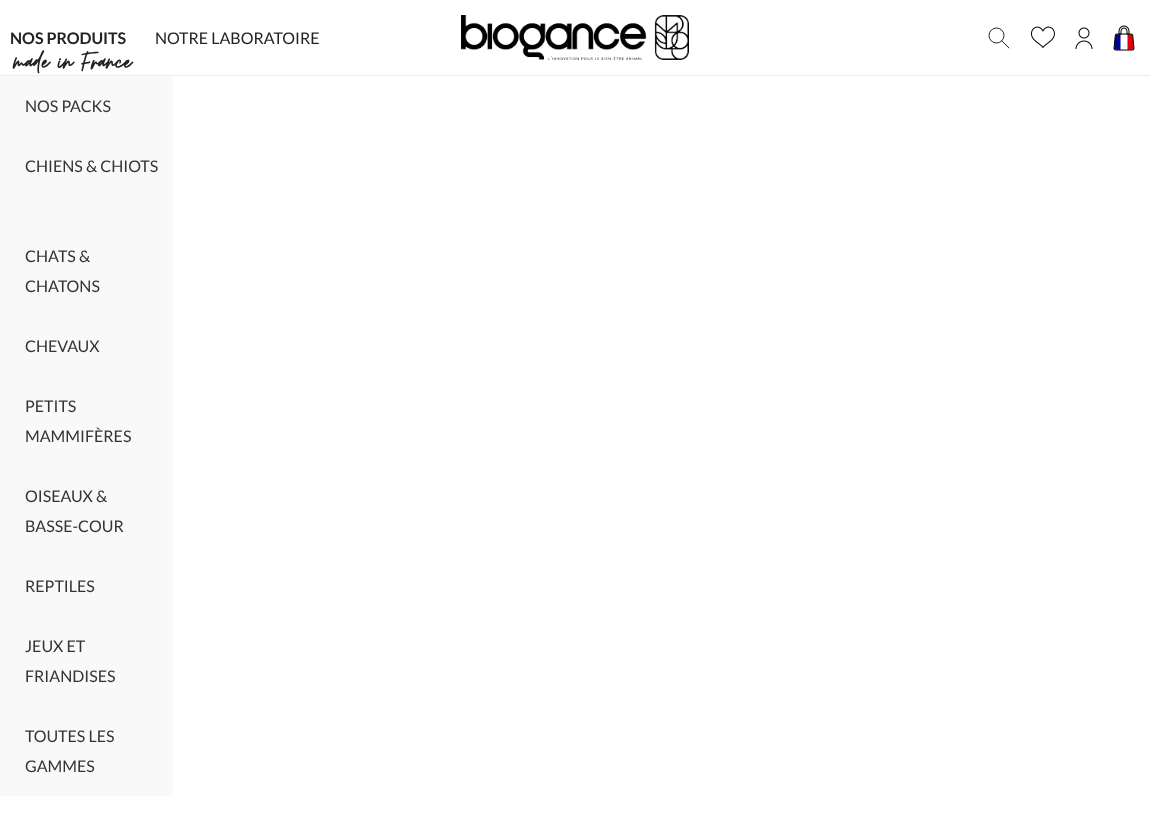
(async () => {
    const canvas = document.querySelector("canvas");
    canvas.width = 1150;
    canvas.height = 836;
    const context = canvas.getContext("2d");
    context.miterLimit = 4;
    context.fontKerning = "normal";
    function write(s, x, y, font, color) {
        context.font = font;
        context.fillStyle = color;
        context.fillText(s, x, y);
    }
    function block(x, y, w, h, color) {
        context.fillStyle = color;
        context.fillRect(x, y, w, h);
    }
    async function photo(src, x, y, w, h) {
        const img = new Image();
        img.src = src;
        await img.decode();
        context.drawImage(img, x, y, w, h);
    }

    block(0, 0, 1150, 836, "rgb(255, 255, 255)");
    block(0, 75, 1150, 1, "rgb(236, 236, 236)");
    write("NOS PRODUITS", 10, 44, "bold 16px Lato", "rgb(34, 34, 34)");
    write("made in France", 13, 69, "bold 30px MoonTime", "rgb(34, 34, 34)");
    block(0, 76, 173, 720, "rgb(249, 249, 249)");
    write("NOS PACKS", 25, 112, "16px Lato", "rgb(51, 51, 51)");
    write("CHIENS & CHIOTS", 25, 172, "16px Lato", "rgb(51, 51, 51)");
    write("CHATS &", 25, 262, "16px Lato", "rgb(51, 51, 51)");
    write("CHATONS", 25, 292, "16px Lato", "rgb(51, 51, 51)");
    write("CHEVAUX", 25, 352, "16px Lato", "rgb(51, 51, 51)");
    write("PETITS", 25, 412, "16px Lato", "rgb(51, 51, 51)");
    write("MAMMIFÈRES", 25, 442, "16px Lato", "rgb(51, 51, 51)");
    write("OISEAUX &", 25, 502, "16px Lato", "rgb(51, 51, 51)");
    write("BASSE-COUR", 25, 532, "16px Lato", "rgb(51, 51, 51)");
    write("REPTILES", 25, 592, "16px Lato", "rgb(51, 51, 51)");
    write("JEUX ET", 25, 652, "16px Lato", "rgb(51, 51, 51)");
    write("FRIANDISES", 25, 682, "16px Lato", "rgb(51, 51, 51)");
    write("TOUTES LES", 25, 742, "16px Lato", "rgb(51, 51, 51)");
    write("GAMMES", 25, 772, "16px Lato", "rgb(51, 51, 51)");
    write("NOTRE LABORATOIRE", 155, 44, "16px Lato", "rgb(34, 34, 34)");
    await photo("media/1.png", 461, 15, 228, 45);
    context.beginPath();
    context.arc(996.5, 35.5, 7.5, 0, Math.PI * 2);
    context.strokeStyle = "rgb(27, 36, 55)";
    context.stroke();
    context.beginPath();
    context.moveTo(1002, 41);
    context.lineTo(1009, 48);
    context.lineCap = "round";
    context.stroke();
    await photo("media/2.png", 1031, 26, 24, 23);
    await photo("media/3.png", 1075, 27, 18, 22);
    await photo("media/4.png", 1113, 25, 22, 26);
})();
